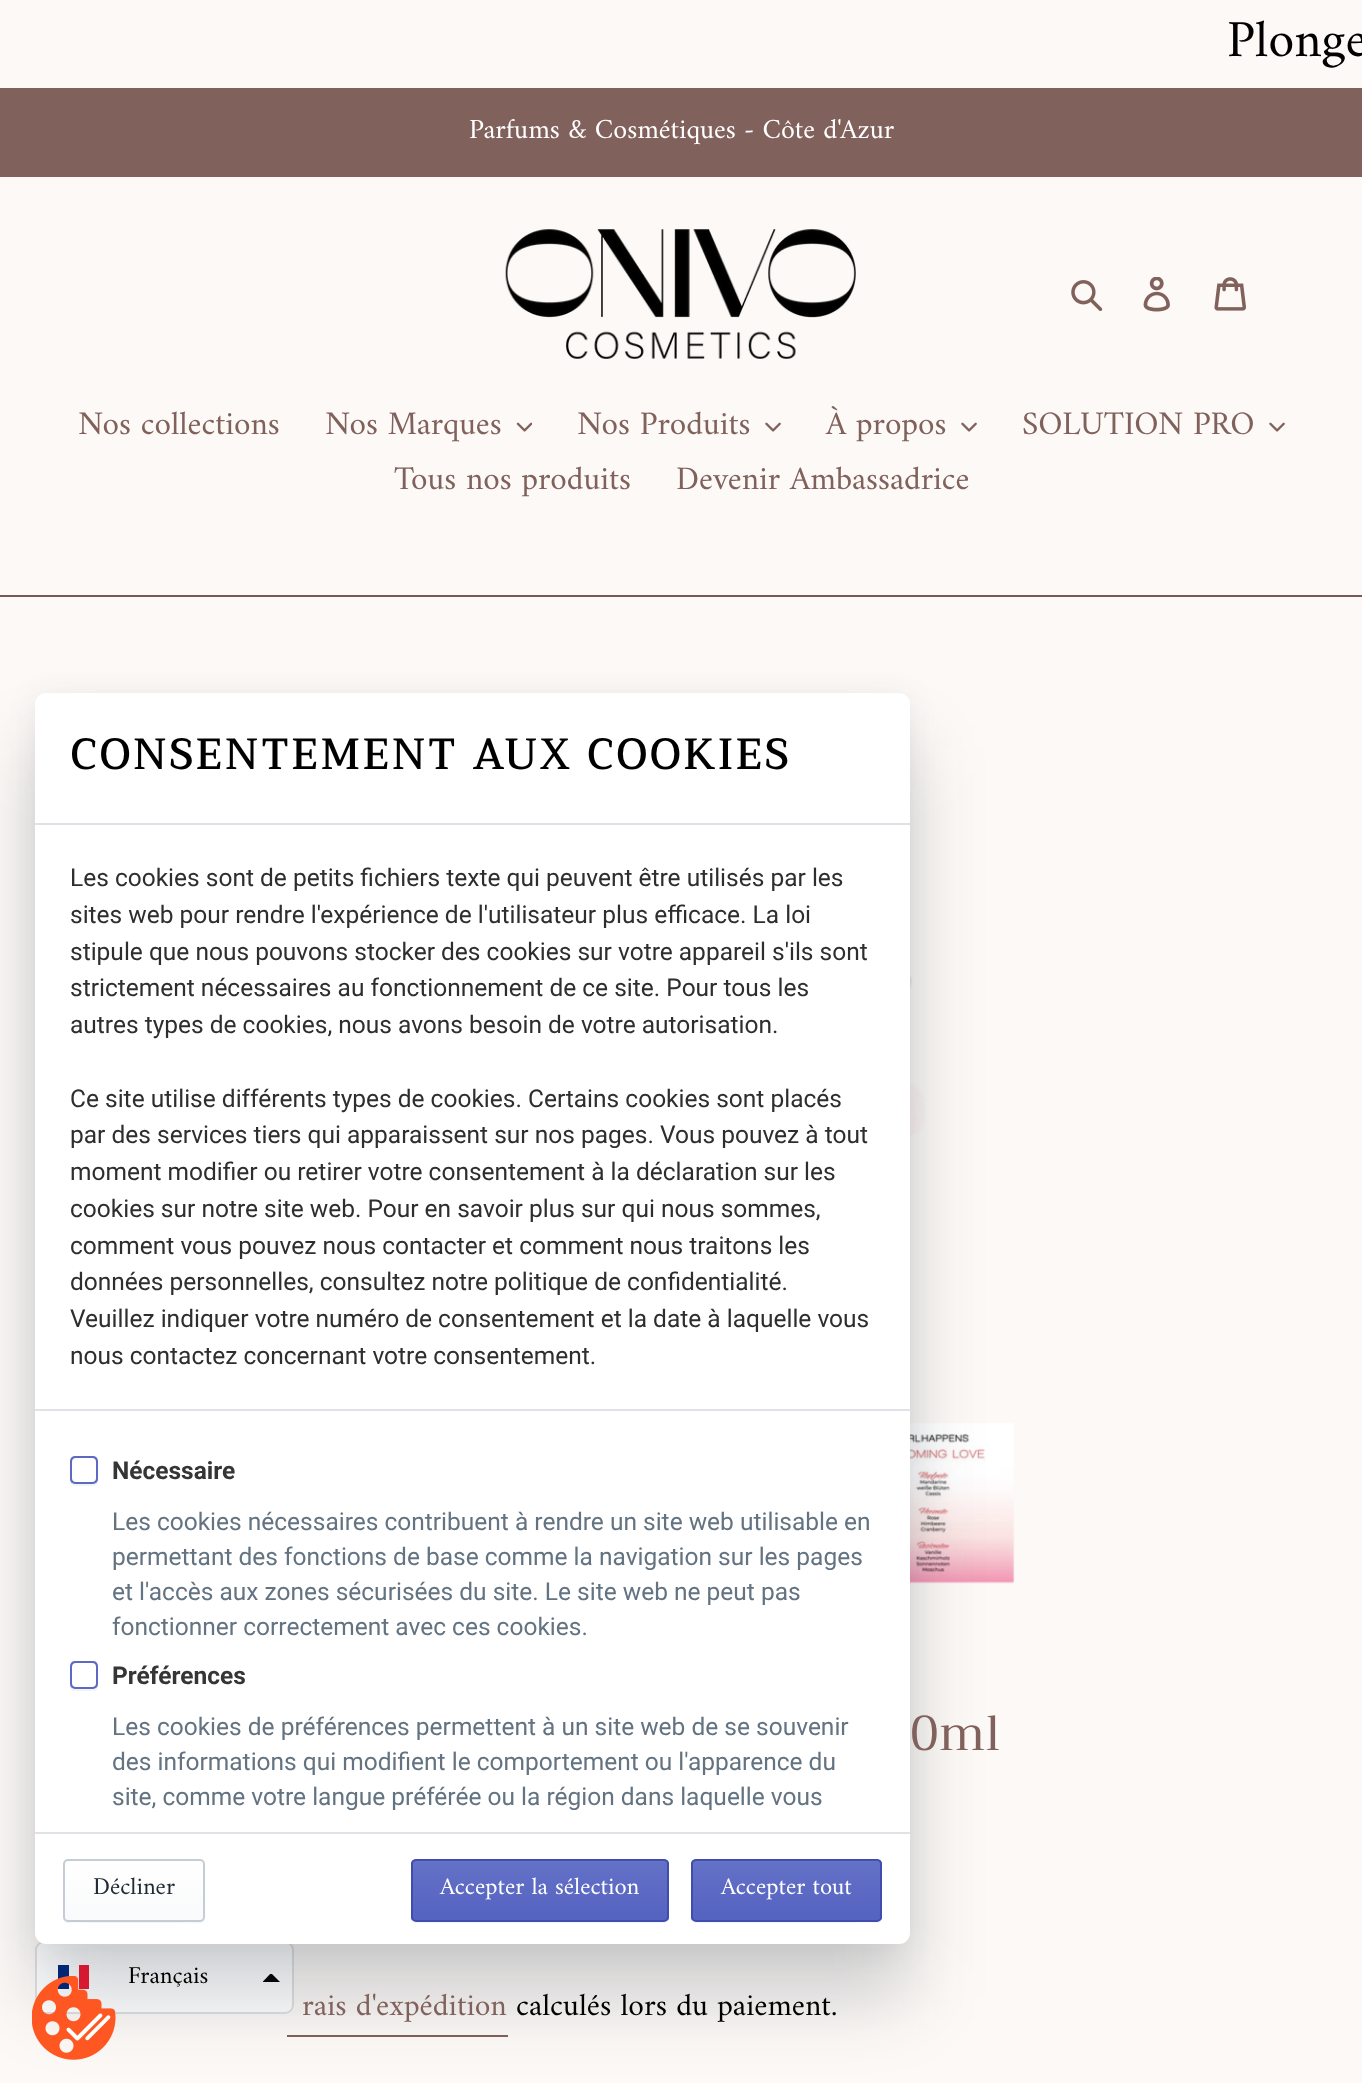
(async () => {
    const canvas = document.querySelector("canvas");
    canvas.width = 1362;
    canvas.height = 2083;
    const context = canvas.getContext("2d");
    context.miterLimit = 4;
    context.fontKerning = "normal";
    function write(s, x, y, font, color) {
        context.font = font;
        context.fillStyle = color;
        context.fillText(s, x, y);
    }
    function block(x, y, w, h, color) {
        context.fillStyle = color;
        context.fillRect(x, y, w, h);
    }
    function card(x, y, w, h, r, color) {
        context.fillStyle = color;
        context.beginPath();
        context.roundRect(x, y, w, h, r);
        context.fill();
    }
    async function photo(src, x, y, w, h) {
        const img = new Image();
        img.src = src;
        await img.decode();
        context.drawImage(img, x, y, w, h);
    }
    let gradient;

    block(0, 0, 1362, 2083, "rgb(252, 249, 246)");
    write("Plonge", 1227, 56, "52.5px Amiri", "rgb(0, 0, 0)");
    block(0, 88, 1362, 89, "rgb(129, 97, 92)");
    write("Parfums & Cosmétiques - Côte d'Azur", 469, 138, "28px Amiri", "rgb(255, 255, 255)");
    await photo("media/1.png", 505, 229, 351, 130);
    await photo("media/2.png", 1071, 280, 32, 31);
    await photo("media/3.png", 1143, 277, 27, 35);
    await photo("media/4.png", 1214, 277, 32, 34);
    block(0, 595, 1362, 2, "rgb(115, 91, 87)");
    write("Nos collections", 78, 434, "33.25px Amiri", "rgb(129, 97, 92)");
    write("Nos Marques", 325, 434, "33.25px Amiri", "rgb(129, 97, 92)");
    await photo("media/5.png", 516, 422, 16, 10);
    write("Nos Produits", 577, 434, "33.25px Amiri", "rgb(129, 97, 92)");
    await photo("media/6.png", 765, 422, 16, 10);
    write("À propos", 826, 434, "33.25px Amiri", "rgb(129, 97, 92)");
    await photo("media/6.png", 961, 422, 16, 10);
    write("SOLUTION PRO", 1022, 434, "33.25px Amiri", "rgb(129, 97, 92)");
    await photo("media/6.png", 1269, 422, 16, 10);
    write("Tous nos produits", 394, 489, "33.25px Amiri", "rgb(129, 97, 92)");
    write("Devenir Ambassadrice", 676, 489, "33.25px Amiri", "rgb(129, 97, 92)");
    context.fillStyle = "rgb(255, 255, 255)";
    context.beginPath();
    context.roundRect(36, 1942, 257, 71, 8);
    context.fill();
    context.strokeStyle = "rgb(224, 224, 224)";
    context.lineWidth = 2;
    context.stroke();
    block(58, 1965, 11, 24, "rgb(0, 38, 127)");
    block(79, 1965, 10, 24, "rgb(243, 24, 48)");
    context.save();
    context.beginPath();
    context.rect(263, 1974, 17, 9);
    context.clip();
    context.fillStyle = "rgb(0, 0, 0)";
    context.beginPath();
    context.moveTo(262.5, 1982);
    context.lineTo(271, 1973);
    context.lineTo(280, 1982);
    context.closePath();
    context.fill("evenodd");
    context.restore();
    await photo("media/8.png", 910, 975, 15, 160);
    await photo("media/9.png", 910, 1423, 105, 161);
    context.fillStyle = "rgba(32, 42, 54, 0.08)";
    context.filter = "blur(14px)";
    context.beginPath();
    context.roundRect(35, 697, 875, 1251, 11);
    context.fill();
    context.filter = "none";
    block(287, 2035, 221, 2, "rgb(129, 97, 92)");
    context.fillStyle = "rgba(32, 42, 53, 0.2)";
    context.filter = "blur(36px)";
    context.beginPath();
    context.roundRect(35, 747, 875, 1252, 11);
    context.fill();
    context.filter = "none";
    card(35, 693, 875, 1251, 11, "rgb(255, 255, 255)");
    block(35, 823, 875, 2, "rgb(223, 227, 232)");
    context.letterSpacing = "3.5px";
    write("CONSENTEMENT AUX COOKIES", 70, 769, "bold 42px Trirong", "rgb(0, 0, 0)");
    block(35, 1409, 875, 2, "rgb(223, 227, 232)");
    context.letterSpacing = "0px";
    write("Les cookies sont de petits fichiers texte qui peuvent être utilisés par les", 70, 886, "24.5px Roboto", "rgb(46, 46, 46)");
    write("sites web pour rendre l'expérience de l'utilisateur plus efficace. La loi", 70, 923, "24.5px Roboto", "rgb(46, 46, 46)");
    write("stipule que nous pouvons stocker des cookies sur votre appareil s'ils sont", 70, 960, "24.5px Roboto", "rgb(46, 46, 46)");
    write("strictement nécessaires au fonctionnement de ce site. Pour tous les", 70, 996, "24.5px Roboto", "rgb(46, 46, 46)");
    write("autres types de cookies, nous avons besoin de votre autorisation.", 70, 1033, "24.5px Roboto", "rgb(46, 46, 46)");
    write("Ce site utilise différents types de cookies. Certains cookies sont placés", 70, 1107, "24.5px Roboto", "rgb(46, 46, 46)");
    write("par des services tiers qui apparaissent sur nos pages. Vous pouvez à tout", 70, 1143, "24.5px Roboto", "rgb(46, 46, 46)");
    write("moment modifier ou retirer votre consentement à la déclaration sur les", 70, 1180, "24.5px Roboto", "rgb(46, 46, 46)");
    write("cookies sur notre site web. Pour en savoir plus sur qui nous sommes,", 70, 1217, "24.5px Roboto", "rgb(46, 46, 46)");
    write("comment vous pouvez nous contacter et comment nous traitons les", 70, 1254, "24.5px Roboto", "rgb(46, 46, 46)");
    write("données personnelles, consultez notre politique de confidentialité.", 70, 1290, "24.5px Roboto", "rgb(46, 46, 46)");
    write("Veuillez indiquer votre numéro de consentement et la date à laquelle vous", 70, 1327, "24.5px Roboto", "rgb(46, 46, 46)");
    write("nous contactez concernant votre consentement.", 70, 1364, "24.5px Roboto", "rgb(46, 46, 46)");
    context.fillStyle = "rgb(243, 244, 244)";
    context.beginPath();
    context.moveTo(70, 1479);
    context.bezierCurveTo(70, 1485, 72, 1486, 78, 1486);
    context.lineTo(90, 1486);
    context.bezierCurveTo(96, 1486, 98, 1485, 98, 1479);
    context.bezierCurveTo(98, 1481.5, 95.5, 1484, 93, 1484);
    context.lineTo(75, 1484);
    context.bezierCurveTo(72.5, 1484, 70, 1481.5, 70, 1479);
    context.closePath();
    context.fill();
    card(70, 1456, 28, 28, 5, "rgb(92, 106, 196)");
    card(72, 1458, 24, 24, 4, "rgb(255, 255, 255)");
    write("Nécessaire", 112, 1479, "bold 24.5px Roboto", "rgb(53, 53, 53)");
    write("Les cookies nécessaires contribuent à rendre un site web utilisable en", 112, 1530, "24.5px Roboto", "rgb(99, 115, 129)");
    write("permettant des fonctions de base comme la navigation sur les pages", 112, 1565, "24.5px Roboto", "rgb(99, 115, 129)");
    write("et l'accès aux zones sécurisées du site. Le site web ne peut pas", 112, 1600, "24.5px Roboto", "rgb(99, 115, 129)");
    write("fonctionner correctement avec ces cookies.", 112, 1635, "24.5px Roboto", "rgb(99, 115, 129)");
    context.fillStyle = "rgb(243, 244, 244)";
    context.beginPath();
    context.moveTo(70, 1683.5);
    context.lineTo(70, 1686);
    context.bezierCurveTo(70, 1689, 72, 1691, 75, 1691);
    context.lineTo(93, 1691);
    context.bezierCurveTo(96, 1691, 98, 1689, 98, 1686);
    context.lineTo(98, 1683.5);
    context.bezierCurveTo(98, 1686.5, 95.5, 1689, 93, 1689);
    context.lineTo(75, 1689);
    context.bezierCurveTo(72.5, 1689, 70, 1686.5, 70, 1683.5);
    context.closePath();
    context.fill();
    card(70, 1661, 28, 28, 5, "rgb(92, 106, 196)");
    card(72, 1663, 24, 24, 4, "rgb(255, 255, 255)");
    write("Préférences", 112, 1684, "bold 24.5px Roboto", "rgb(53, 53, 53)");
    write("Les cookies de préférences permettent à un site web de se souvenir", 112, 1735, "24.5px Roboto", "rgb(99, 115, 129)");
    write("des informations qui modifient le comportement ou l'apparence du", 112, 1770, "24.5px Roboto", "rgb(99, 115, 129)");
    write("site, comme votre langue préférée ou la région dans laquelle vous", 112, 1805, "24.5px Roboto", "rgb(99, 115, 129)");
    block(35, 1832, 875, 2, "rgb(223, 227, 232)");
    context.fillStyle = "rgb(243, 244, 244)";
    context.beginPath();
    context.moveTo(63, 1916);
    context.bezierCurveTo(63, 1920, 64, 1923, 68, 1923);
    context.lineTo(178, 1923);
    context.bezierCurveTo(209, 1923, 205, 1928, 205, 1900);
    context.lineTo(205, 1863);
    context.lineTo(205, 1917);
    context.bezierCurveTo(203, 1925, 185, 1922, 178, 1922);
    context.lineTo(90, 1922);
    context.bezierCurveTo(80, 1922, 63, 1925, 63, 1916);
    context.closePath();
    context.fill();
    context.save();
    context.beginPath();
    context.roundRect(63, 1859, 142, 63, 5);
    context.clip();
    gradient = context.createLinearGradient(134, 1860, 134, 1920);
    gradient.addColorStop(0, "rgb(255, 255, 255)");
    gradient.addColorStop(1, "rgb(249, 250, 251)");
    context.fillStyle = gradient;
    context.fillRect(63, 1860, 142, 60);
    context.restore();
    context.beginPath();
    context.roundRect(64, 1860, 140, 61, 4);
    context.strokeStyle = "rgb(196, 205, 213)";
    context.stroke();
    write("Décliner", 93, 1894, "24.5px Amiri", "rgb(33, 43, 54)");
    context.fillStyle = "rgb(243, 244, 244)";
    context.beginPath();
    context.moveTo(411, 1863);
    context.lineTo(411, 1918);
    context.bezierCurveTo(411, 1921, 413, 1923, 416, 1923);
    context.lineTo(664, 1923);
    context.bezierCurveTo(667, 1923, 669, 1921, 669, 1918);
    context.lineTo(669, 1865);
    context.lineTo(668, 1863);
    context.lineTo(668, 1908);
    context.bezierCurveTo(668, 1911, 670, 1921, 663, 1922);
    context.lineTo(416, 1922);
    context.bezierCurveTo(409, 1921, 411, 1911, 411, 1908);
    context.closePath();
    context.fill();
    context.save();
    context.beginPath();
    context.roundRect(411, 1859, 258, 63, 5);
    context.clip();
    gradient = context.createLinearGradient(540, 1860, 540, 1920);
    gradient.addColorStop(0, "rgb(99, 113, 199)");
    gradient.addColorStop(1, "rgb(85, 99, 193)");
    context.fillStyle = gradient;
    context.fillRect(411, 1860, 258, 60);
    context.restore();
    context.fillStyle = "rgb(103, 116, 200)";
    context.beginPath();
    context.moveTo(416, 1862);
    context.lineTo(663, 1862);
    context.bezierCurveTo(665, 1862, 667, 1864, 667, 1866);
    context.lineTo(667, 1864);
    context.bezierCurveTo(667, 1862, 665, 1860, 663, 1860);
    context.lineTo(417, 1860);
    context.bezierCurveTo(415, 1860, 413, 1862, 413, 1864);
    context.lineTo(413, 1866);
    context.bezierCurveTo(413, 1864, 415, 1862, 416, 1862);
    context.closePath();
    context.fill();
    context.beginPath();
    context.roundRect(412, 1860, 256, 61, 4);
    context.strokeStyle = "rgb(63, 78, 174)";
    context.stroke();
    write("Accepter la sélection", 440, 1894, "24.5px Amiri", "rgb(255, 255, 255)");
    context.fillStyle = "rgb(243, 244, 244)";
    context.beginPath();
    context.moveTo(691, 1863);
    context.lineTo(691, 1918);
    context.bezierCurveTo(691, 1921, 693, 1923, 696, 1923);
    context.lineTo(877, 1923);
    context.bezierCurveTo(880, 1923, 882, 1921, 882, 1918);
    context.lineTo(882, 1916);
    context.bezierCurveTo(882, 1926, 857, 1922, 847, 1922);
    context.lineTo(696, 1922);
    context.bezierCurveTo(689, 1921, 691, 1911, 691, 1908);
    context.closePath();
    context.fill();
    context.save();
    context.beginPath();
    context.roundRect(691, 1859, 191, 63, 5);
    context.clip();
    gradient = context.createLinearGradient(787, 1860, 787, 1920);
    gradient.addColorStop(0, "rgb(99, 113, 199)");
    gradient.addColorStop(1, "rgb(85, 99, 193)");
    context.fillStyle = gradient;
    context.fillRect(691, 1860, 191, 60);
    context.restore();
    context.fillStyle = "rgb(103, 116, 200)";
    context.beginPath();
    context.moveTo(696, 1862);
    context.lineTo(877, 1862);
    context.bezierCurveTo(879, 1862, 880, 1864, 880, 1866);
    context.lineTo(880, 1864);
    context.bezierCurveTo(880, 1862, 878, 1860, 876, 1860);
    context.lineTo(697, 1860);
    context.bezierCurveTo(695, 1860, 693, 1862, 693, 1864);
    context.lineTo(693, 1866);
    context.bezierCurveTo(693, 1864, 695, 1862, 696, 1862);
    context.closePath();
    context.fill();
    context.beginPath();
    context.roundRect(692, 1860, 189, 61, 4);
    context.stroke();
    write("Accepter tout", 721, 1894, "24.5px Amiri", "rgb(255, 255, 255)");
    await photo("media/7.png", 32, 1976, 84, 84);
    write("Français", 128, 1983, "24.5px Amiri", "rgb(0, 0, 0)");
    write("0ml", 910, 1750, "49px Trirong", "rgb(129, 97, 92)");
    write("rais d'expédition", 302, 2015, "31.5px Amiri", "rgb(129, 97, 92)");
    write("calculés lors du paiement.", 516, 2015, "31.5px Amiri", "rgb(0, 0, 0)");
})();
